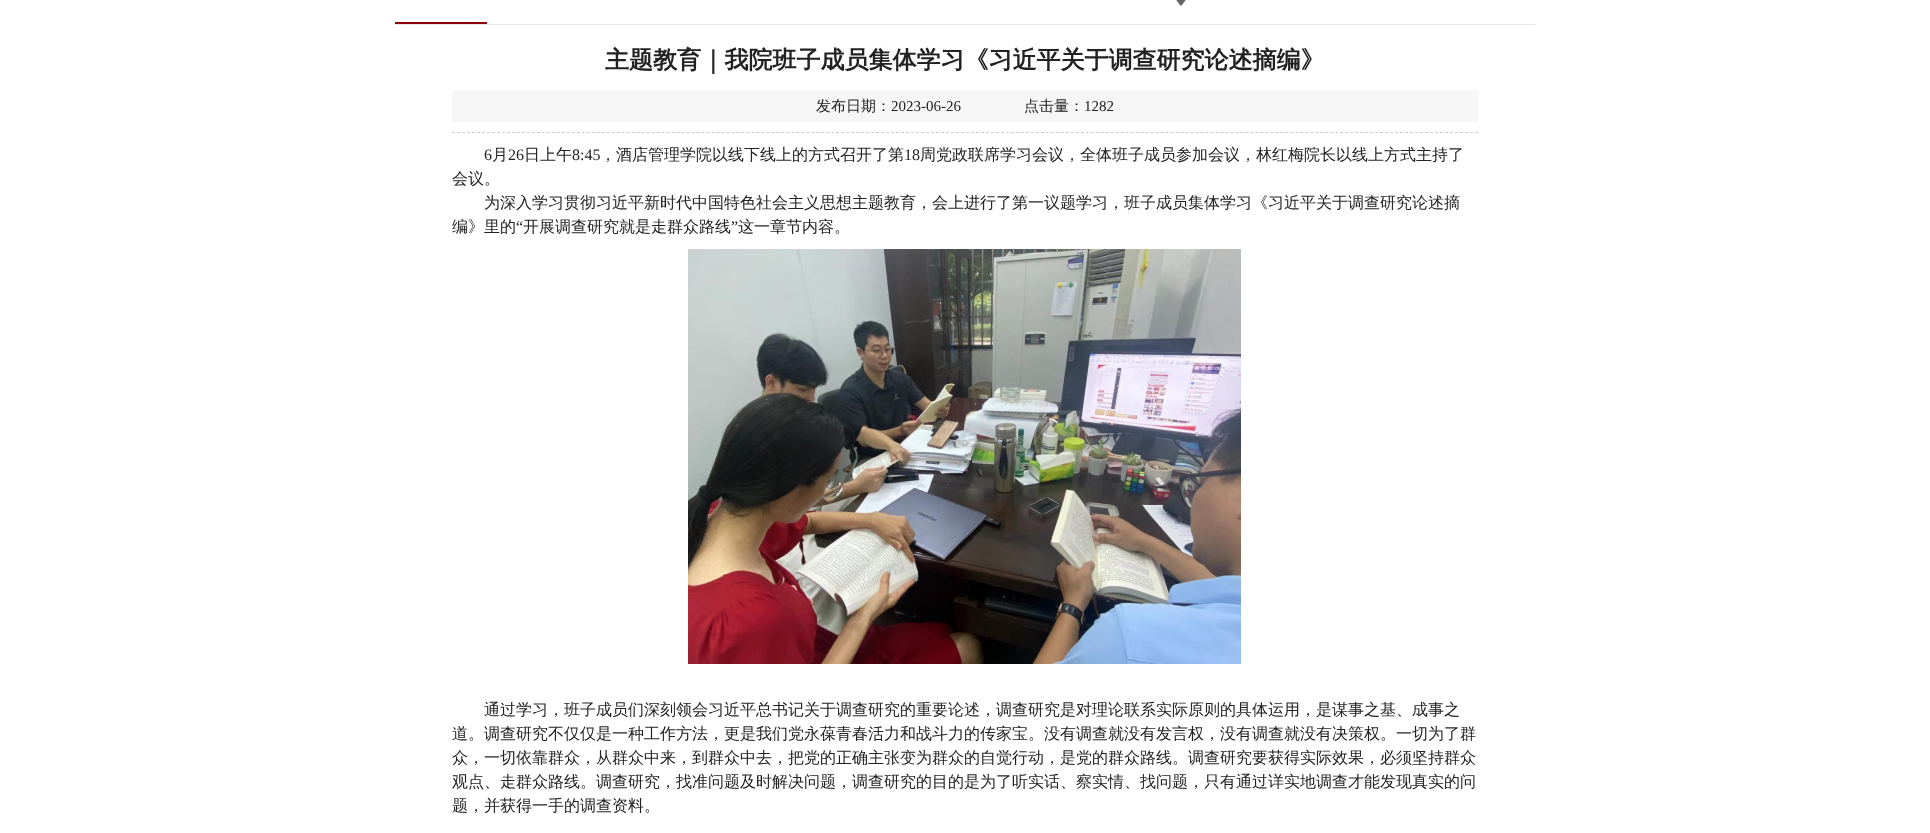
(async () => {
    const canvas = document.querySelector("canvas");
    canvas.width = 1930;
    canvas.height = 833;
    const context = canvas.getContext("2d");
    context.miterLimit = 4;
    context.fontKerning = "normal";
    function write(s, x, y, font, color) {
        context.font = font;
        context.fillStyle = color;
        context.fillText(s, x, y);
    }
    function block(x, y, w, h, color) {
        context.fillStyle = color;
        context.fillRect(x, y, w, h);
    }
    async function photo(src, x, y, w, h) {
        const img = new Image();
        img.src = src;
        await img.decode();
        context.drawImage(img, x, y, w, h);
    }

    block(0, 0, 1930, 833, "rgb(255, 255, 255)");
    block(395, 24, 1140, 1, "rgb(231, 231, 231)");
    await photo("media/1.png", 1176, 0, 10, 6);
    block(395, 22, 92, 2, "rgb(143, 0, 11)");
    context.beginPath();
    context.moveTo(452, 132.5);
    context.lineTo(1478, 132.5);
    context.strokeStyle = "rgb(204, 204, 204)";
    context.setLineDash([3, 1.99]);
    context.stroke();
    write("主题教育｜我院班子成员集体学习《习近平关于调查研究论述摘编》", 605, 68, "bold 24px WenQuanYi Zen Hei", "rgb(34, 34, 34)");
    block(452, 90, 1026, 32, "rgb(246, 246, 246)");
    write("发布日期：", 816, 111, "500 15px WenQuanYi Zen Hei", "rgb(34, 34, 34)");
    write("2023-06-26", 891, 111, "15px Liberation Serif", "rgb(34, 34, 34)");
    write("点击量：", 1024, 111, "500 15px WenQuanYi Zen Hei", "rgb(34, 34, 34)");
    write("1282", 1084, 111, "15px Liberation Serif", "rgb(34, 34, 34)");
    write("6", 484, 160, "16px Liberation Serif", "rgb(34, 34, 34)");
    write("月", 492, 160, "500 16px WenQuanYi Zen Hei", "rgb(34, 34, 34)");
    write("26", 508, 160, "16px Liberation Serif", "rgb(34, 34, 34)");
    write("日上午", 524, 160, "500 16px WenQuanYi Zen Hei", "rgb(34, 34, 34)");
    write("8:45", 572, 160, "16px Liberation Serif", "rgb(34, 34, 34)");
    write("，酒店管理学院以线下线上的方式召开了第", 600, 160, "500 16px WenQuanYi Zen Hei", "rgb(34, 34, 34)");
    write("18", 904, 160, "16px Liberation Serif", "rgb(34, 34, 34)");
    write("周党政联席学习会议，全体班子成员参加会议，林红梅院长以线上方式主持了", 920, 160, "500 16px WenQuanYi Zen Hei", "rgb(34, 34, 34)");
    write("会议。", 452, 184, "500 16px WenQuanYi Zen Hei", "rgb(34, 34, 34)");
    write("为深入学习贯彻习近平新时代中国特色社会主义思想主题教育，会上进行了第一议题学习，班子成员集体学习《习近平关于调查研究论述摘", 484, 208, "500 16px WenQuanYi Zen Hei", "rgb(34, 34, 34)");
    write("编》里的", 452, 232, "500 16px WenQuanYi Zen Hei", "rgb(34, 34, 34)");
    write("“", 516, 232, "16px Liberation Serif", "rgb(34, 34, 34)");
    write("开展调查研究就是走群众路线", 523, 232, "500 16px WenQuanYi Zen Hei", "rgb(34, 34, 34)");
    write("”", 731, 232, "16px Liberation Serif", "rgb(34, 34, 34)");
    write("这一章节内容。", 738, 232, "500 16px WenQuanYi Zen Hei", "rgb(34, 34, 34)");
    await photo("media/2.png", 688, 249, 553, 415);
    write("通过学习，班子成员们深刻领会习近平总书记关于调查研究的重要论述，调查研究是对理论联系实际原则的具体运用，是谋事之基、成事之", 484, 715, "500 16px WenQuanYi Zen Hei", "rgb(34, 34, 34)");
    write("道。调查研究不仅仅是一种工作方法，更是我们党永葆青春活力和战斗力的传家宝。没有调查就没有发言权，没有调查就没有决策权。一切为了群", 452, 739, "500 16px WenQuanYi Zen Hei", "rgb(34, 34, 34)");
    write("众，一切依靠群众，从群众中来，到群众中去，把党的正确主张变为群众的自觉行动，是党的群众路线。调查研究要获得实际效果，必须坚持群众", 452, 763, "500 16px WenQuanYi Zen Hei", "rgb(34, 34, 34)");
    write("观点、走群众路线。调查研究，找准问题及时解决问题，调查研究的目的是为了听实话、察实情、找问题，只有通过详实地调查才能发现真实的问", 452, 787, "500 16px WenQuanYi Zen Hei", "rgb(34, 34, 34)");
    write("题，并获得一手的调查资料。", 452, 811, "500 16px WenQuanYi Zen Hei", "rgb(34, 34, 34)");
})();
